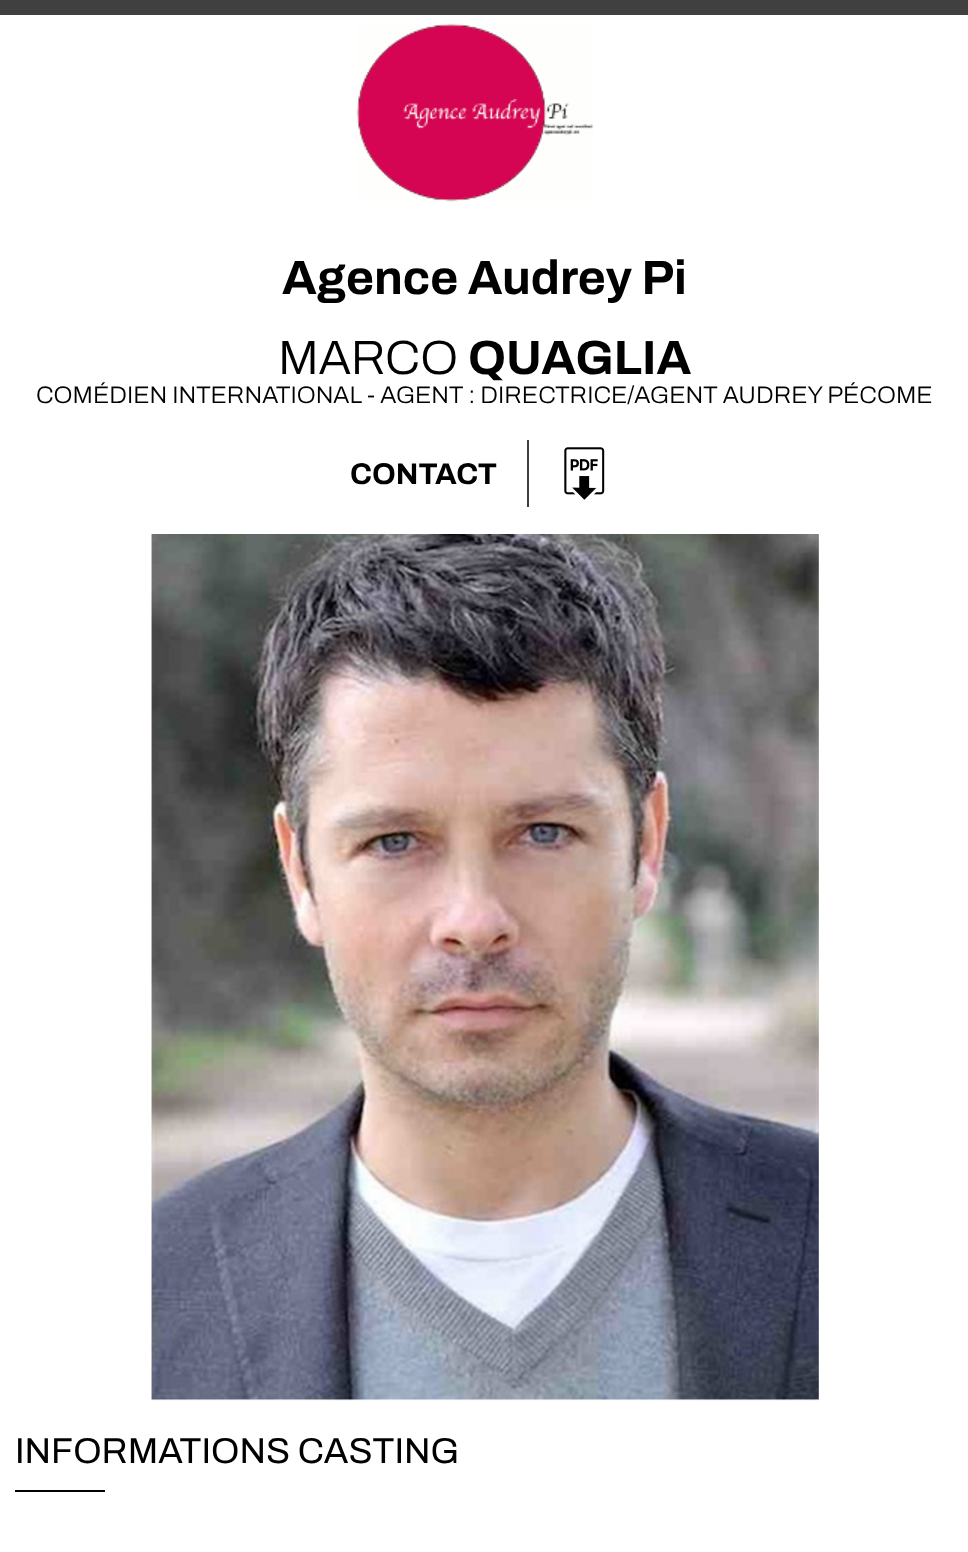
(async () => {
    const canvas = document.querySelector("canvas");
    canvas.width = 968;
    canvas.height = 1552;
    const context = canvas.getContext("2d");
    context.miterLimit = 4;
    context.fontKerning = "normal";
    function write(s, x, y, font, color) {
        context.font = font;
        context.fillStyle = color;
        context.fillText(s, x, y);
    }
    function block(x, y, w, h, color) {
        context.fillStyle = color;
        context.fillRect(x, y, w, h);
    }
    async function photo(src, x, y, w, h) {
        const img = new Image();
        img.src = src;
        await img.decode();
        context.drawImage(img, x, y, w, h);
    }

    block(0, 0, 968, 1552, "rgb(255, 255, 255)");
    block(0, 0, 968, 15, "rgb(64, 64, 64)");
    await photo("media/1.png", 356, 23, 237, 179);
    write("Agence Audrey Pi", 282, 294, "bold 48px Archivo", "rgb(0, 0, 0)");
    write("MARCO", 278, 374, "300 48px Archivo", "rgb(0, 0, 0)");
    write("QUAGLIA", 468, 374, "bold 48px Archivo", "rgb(0, 0, 0)");
    write("COMÉDIEN INTERNATIONAL - AGENT : DIRECTRICE/AGENT AUDREY PÉCOME", 36, 403, "300 24px Archivo", "rgb(0, 0, 0)");
    write("CONTACT", 350, 484, "bold 30px Archivo", "rgb(0, 0, 0)");
    block(527, 440, 2, 67, "rgb(62, 62, 62)");
    await photo("media/2.png", 564, 447, 41, 53);
    await photo("media/3.png", 151, 534, 668, 867);
    write("INFORMATIONS CASTING", 15, 1463, "36px Archivo", "rgb(0, 0, 0)");
    block(15, 1490, 90, 2, "rgb(0, 0, 0)");
})();
